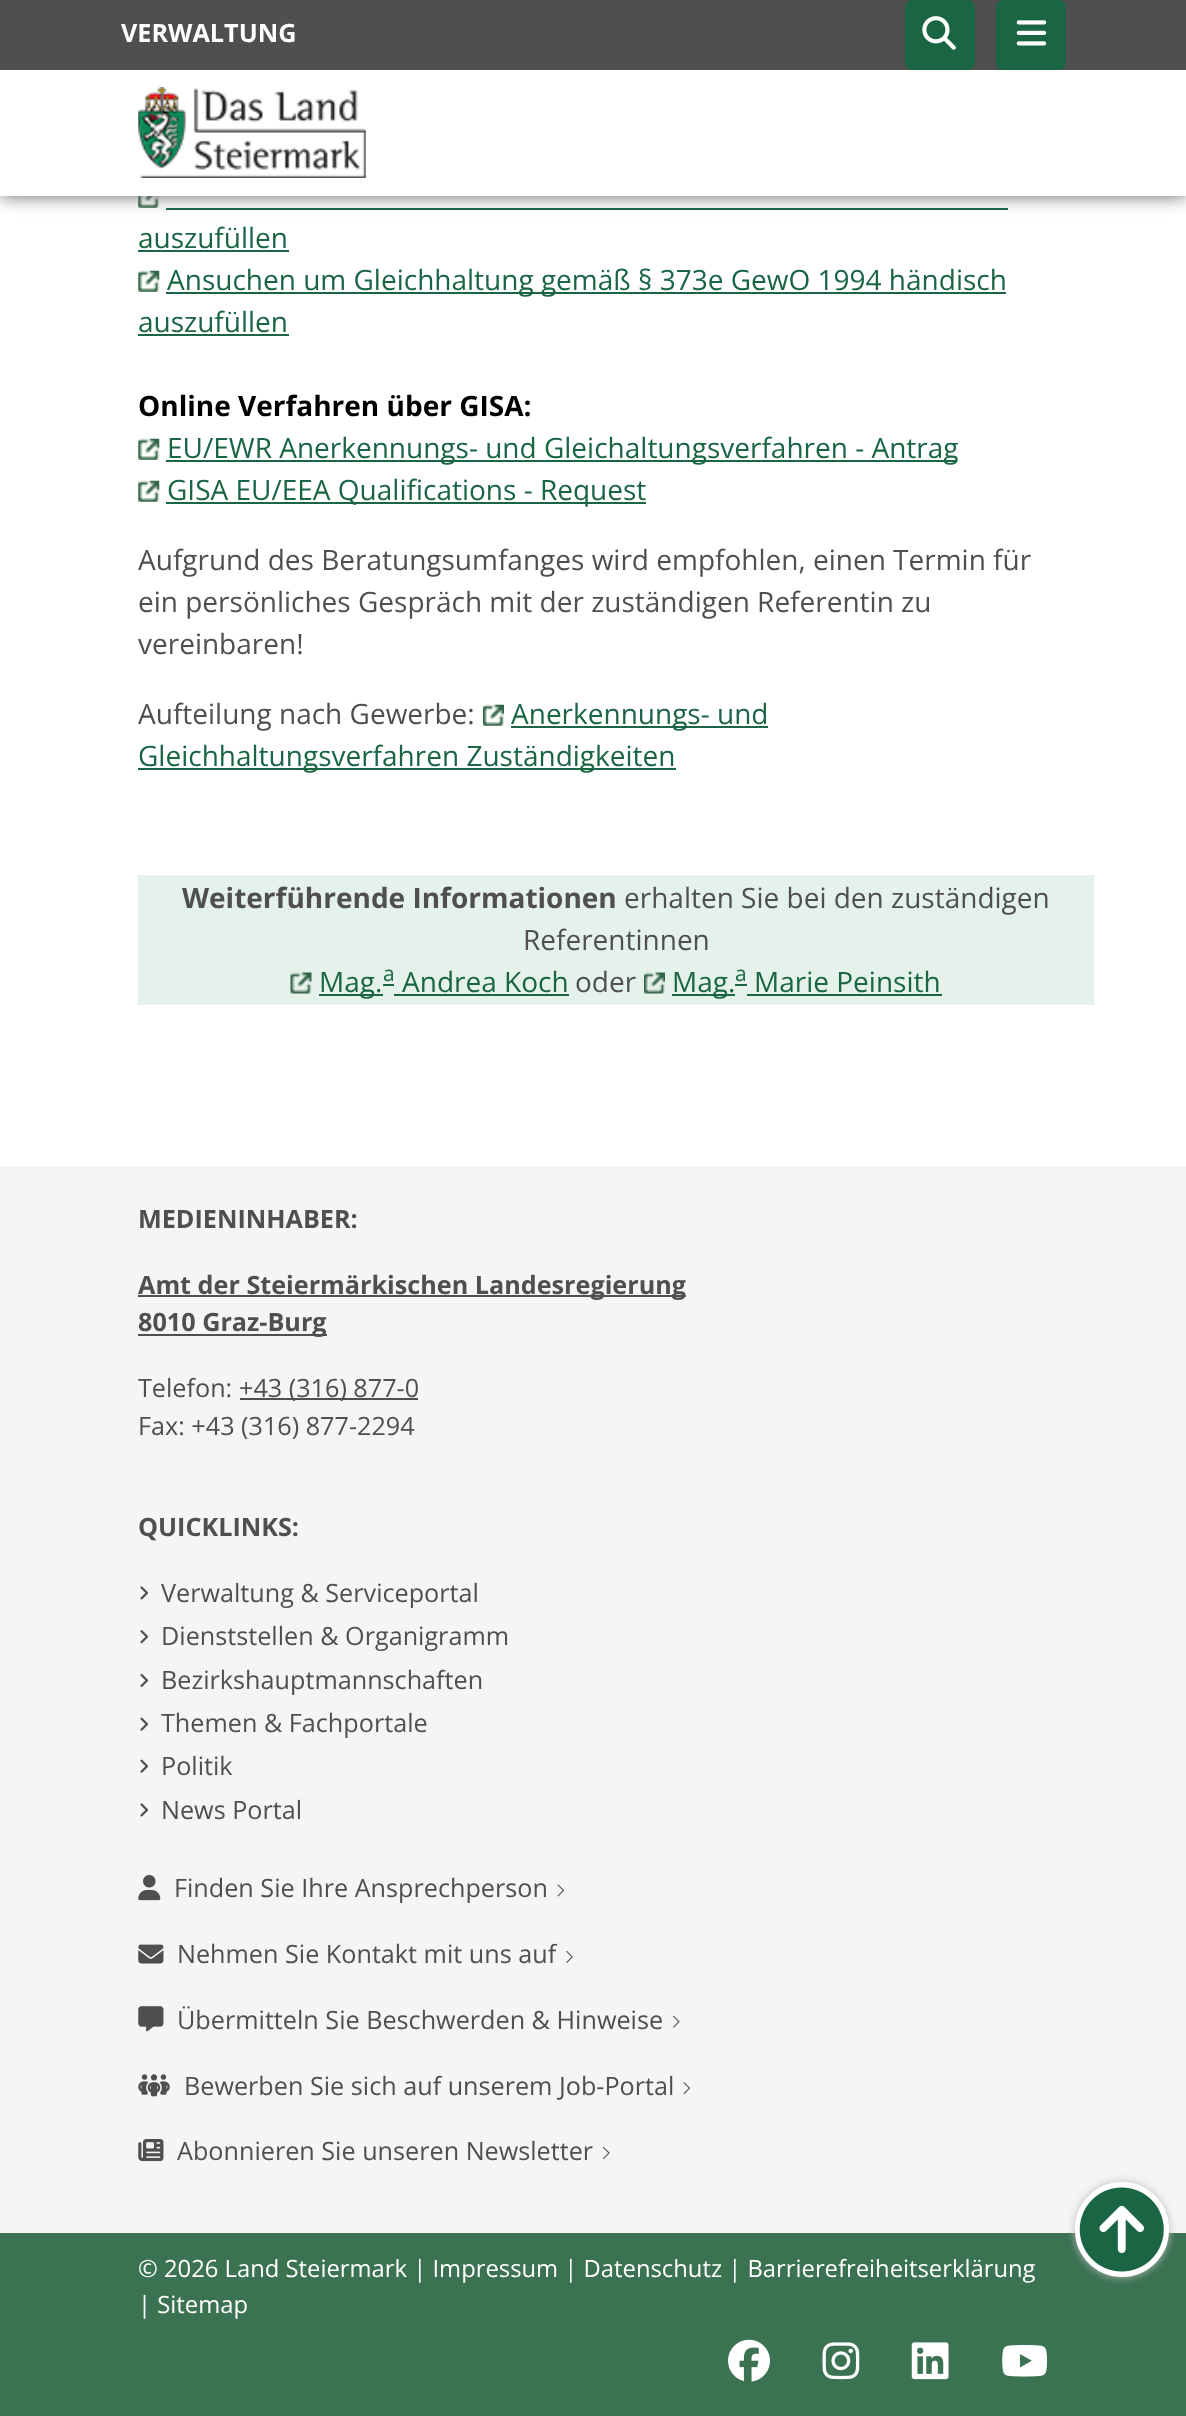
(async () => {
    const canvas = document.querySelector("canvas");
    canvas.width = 1186;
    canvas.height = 2416;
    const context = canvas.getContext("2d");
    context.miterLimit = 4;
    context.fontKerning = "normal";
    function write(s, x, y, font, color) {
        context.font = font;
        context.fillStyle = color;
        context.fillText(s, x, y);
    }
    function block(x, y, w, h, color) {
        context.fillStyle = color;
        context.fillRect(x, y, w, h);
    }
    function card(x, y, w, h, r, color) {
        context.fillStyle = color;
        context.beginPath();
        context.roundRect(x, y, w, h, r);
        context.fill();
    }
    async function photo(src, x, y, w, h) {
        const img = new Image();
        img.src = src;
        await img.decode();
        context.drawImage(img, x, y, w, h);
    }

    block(0, 0, 1186, 2416, "rgb(255, 255, 255)");
    await photo("media/4.png", 138, 196, 22, 12);
    block(166, 208, 842, 2, "rgb(26, 101, 68)");
    context.fillStyle = "rgb(101, 101, 101)";
    context.filter = "blur(9px)";
    context.beginPath();
    context.rect(0, 0, 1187, 196);
    context.fill();
    context.filter = "none";
    block(0, 70, 1186, 126, "rgb(255, 255, 255)");
    block(0, 0, 1186, 70, "rgb(79, 79, 79)");
    write("VERWALTUNG", 121, 42, "bold 25.2px Open Sans", "rgb(255, 255, 255)");
    card(905, 0, 70, 70, 7, "rgb(26, 101, 68)");
    await photo("media/1.png", 922, 16, 34, 34);
    card(996, 0, 70, 70, 7, "rgb(26, 101, 68)");
    await photo("media/2.png", 1016, 20, 31, 26);
    await photo("media/3.png", 138, 87, 228, 91);
    write("auszufüllen", 138, 248, "28px Open Sans", "rgb(26, 101, 68)");
    block(138, 250, 151, 2, "rgb(26, 101, 68)");
    await photo("media/5.png", 138, 270, 22, 22);
    block(166, 292, 840, 2, "rgb(26, 101, 68)");
    write("Ansuchen um Gleichhaltung gemäß § 373e GewO 1994 händisch", 167, 290, "28px Open Sans", "rgb(26, 101, 68)");
    write("auszufüllen", 138, 332, "28px Open Sans", "rgb(26, 101, 68)");
    block(138, 334, 151, 2, "rgb(26, 101, 68)");
    write("Online Verfahren über GISA:", 138, 416, "bold 28px Open Sans", "rgb(0, 0, 0)");
    await photo("media/5.png", 138, 438, 22, 22);
    block(166, 460, 791, 2, "rgb(26, 101, 68)");
    write("EU/EWR Anerkennungs- und Gleichaltungsverfahren - Antrag", 167, 458, "28px Open Sans", "rgb(26, 101, 68)");
    await photo("media/5.png", 138, 480, 22, 22);
    block(166, 502, 480, 2, "rgb(26, 101, 68)");
    write("GISA EU/EEA Qualifications - Request", 167, 500, "28px Open Sans", "rgb(26, 101, 68)");
    write("Aufgrund des Beratungsumfanges wird empfohlen, einen Termin für", 138, 570, "28px Open Sans", "rgb(79, 79, 79)");
    write("ein persönliches Gespräch mit der zuständigen Referentin zu", 138, 612, "28px Open Sans", "rgb(79, 79, 79)");
    write("vereinbaren!", 138, 654, "28px Open Sans", "rgb(79, 79, 79)");
    write("Aufteilung nach Gewerbe:", 138, 724, "28px Open Sans", "rgb(79, 79, 79)");
    await photo("media/6.png", 483, 704, 21, 22);
    block(511, 726, 257, 2, "rgb(26, 101, 68)");
    write("Anerkennungs- und", 511, 724, "28px Open Sans", "rgb(26, 101, 68)");
    block(138, 768, 538, 2, "rgb(26, 101, 68)");
    write("Gleichhaltungsverfahren Zuständigkeiten", 138, 766, "28px Open Sans", "rgb(26, 101, 68)");
    block(138, 875, 956, 130, "rgb(229, 242, 235)");
    write("Weiterführende Informationen", 182, 908, "bold 28px Open Sans", "rgb(79, 79, 79)");
    write("erhalten Sie bei den zuständigen", 624, 908, "28px Open Sans", "rgb(79, 79, 79)");
    write("Referentinnen", 523, 950, "28px Open Sans", "rgb(79, 79, 79)");
    await photo("media/7.png", 290, 972, 22, 22);
    block(319, 994, 64, 2, "rgb(26, 101, 68)");
    write("Mag.", 319, 992, "28px Open Sans", "rgb(26, 101, 68)");
    block(383, 984, 11, 2, "rgb(26, 101, 68)");
    write("a", 383, 981, "21px Open Sans", "rgb(26, 101, 68)");
    write("Andrea Koch", 402, 992, "28px Open Sans", "rgb(26, 101, 68)");
    block(394, 994, 175, 2, "rgb(26, 101, 68)");
    write("oder", 575, 992, "28px Open Sans", "rgb(79, 79, 79)");
    await photo("media/8.png", 644, 972, 21, 22);
    block(672, 994, 63, 2, "rgb(26, 101, 68)");
    write("Mag.", 672, 992, "28px Open Sans", "rgb(26, 101, 68)");
    block(735, 984, 12, 2, "rgb(26, 101, 68)");
    write("a", 735, 981, "21px Open Sans", "rgb(26, 101, 68)");
    write("Marie Peinsith", 754, 992, "28px Open Sans", "rgb(26, 101, 68)");
    block(747, 994, 195, 2, "rgb(26, 101, 68)");
    block(0, 1166, 1186, 1067, "rgb(245, 245, 245)");
    write("MEDIENINHABER:", 138, 1228, "bold 25.2px Open Sans", "rgb(79, 79, 79)");
    block(138, 1295, 548, 2, "rgb(79, 79, 79)");
    write("Amt der Steiermärkischen Landesregierung", 138, 1294, "bold 25.2px Open Sans", "rgb(79, 79, 79)");
    block(138, 1334, 189, 2, "rgb(79, 79, 79)");
    write("8010 Graz-Burg", 138, 1331, "bold 25.2px Open Sans", "rgb(79, 79, 79)");
    write("Telefon:", 138, 1397, "25.2px Open Sans", "rgb(79, 79, 79)");
    block(240, 1398, 178, 2, "rgb(79, 79, 79)");
    write("+43 (316) 877-0", 239, 1397, "25.2px Open Sans", "rgb(79, 79, 79)");
    write("Fax: +43 (316) 877-2294", 138, 1435, "25.2px Open Sans", "rgb(79, 79, 79)");
    write("QUICKLINKS:", 138, 1536, "bold 25.2px Open Sans", "rgb(79, 79, 79)");
    await photo("media/9.png", 140, 1586, 9, 14);
    write("Verwaltung & Serviceportal", 161, 1602, "25.2px Open Sans", "rgb(79, 79, 79)");
    await photo("media/10.png", 140, 1630, 9, 14);
    write("Dienststellen & Organigramm", 161, 1645, "25.2px Open Sans", "rgb(79, 79, 79)");
    await photo("media/11.png", 140, 1673, 9, 14);
    write("Bezirkshauptmannschaften", 161, 1689, "25.2px Open Sans", "rgb(79, 79, 79)");
    await photo("media/12.png", 140, 1717, 9, 14);
    write("Themen & Fachportale", 161, 1732, "25.2px Open Sans", "rgb(79, 79, 79)");
    await photo("media/12.png", 140, 1759, 9, 14);
    write("Politik", 161, 1775, "25.2px Open Sans", "rgb(79, 79, 79)");
    await photo("media/9.png", 140, 1803, 9, 14);
    write("News Portal", 161, 1819, "25.2px Open Sans", "rgb(79, 79, 79)");
    await photo("media/13.png", 138, 1875, 23, 26);
    write("Finden Sie Ihre Ansprechperson", 174, 1897, "25.2px Open Sans", "rgb(79, 79, 79)");
    await photo("media/14.png", 557, 1884, 7, 13);
    await photo("media/15.png", 138, 1944, 26, 20);
    write("Nehmen Sie Kontakt mit uns auf", 177, 1963, "25.2px Open Sans", "rgb(79, 79, 79)");
    await photo("media/16.png", 566, 1951, 7, 12);
    await photo("media/17.png", 138, 2006, 26, 26);
    write("Übermitteln Sie Beschwerden & Hinweise", 177, 2029, "25.2px Open Sans", "rgb(79, 79, 79)");
    await photo("media/18.png", 673, 2015, 7, 13);
    await photo("media/19.png", 138, 2074, 32, 23);
    write("Bewerben Sie sich auf unserem Job-Portal", 184, 2095, "25.2px Open Sans", "rgb(79, 79, 79)");
    await photo("media/20.png", 683, 2082, 7, 13);
    await photo("media/21.png", 138, 2139, 26, 23);
    write("Abonnieren Sie unseren Newsletter", 177, 2160, "25.2px Open Sans", "rgb(79, 79, 79)");
    await photo("media/22.png", 603, 2147, 7, 12);
    block(0, 2233, 1186, 183, "rgb(58, 114, 82)");
    write("© 2026 Land Steiermark | Impressum | Datenschutz | Barrierefreiheitserklärung", 138, 2277, "23.8px Open Sans", "rgb(255, 255, 255)");
    write("| Sitemap", 138, 2313, "23.8px Open Sans", "rgb(255, 255, 255)");
    await photo("media/23.png", 728, 2339, 42, 43);
    await photo("media/24.png", 822, 2342, 38, 38);
    await photo("media/25.png", 911, 2342, 38, 38);
    await photo("media/26.png", 1002, 2345, 45, 32);
    context.fillStyle = "rgb(188, 188, 188)";
    context.filter = "blur(4.5px)";
    context.beginPath();
    context.roundRect(1075, 2182, 94, 95, 47);
    context.fill();
    context.filter = "none";
    context.fillStyle = "rgb(255, 255, 255)";
    context.beginPath();
    context.roundRect(1077.5, 2184.5, 89, 90, 44.5);
    context.fill();
    context.strokeStyle = "rgb(255, 255, 255)";
    context.lineWidth = 5;
    context.stroke();
    await photo("media/27.png", 1079, 2187, 85, 85);
})();
